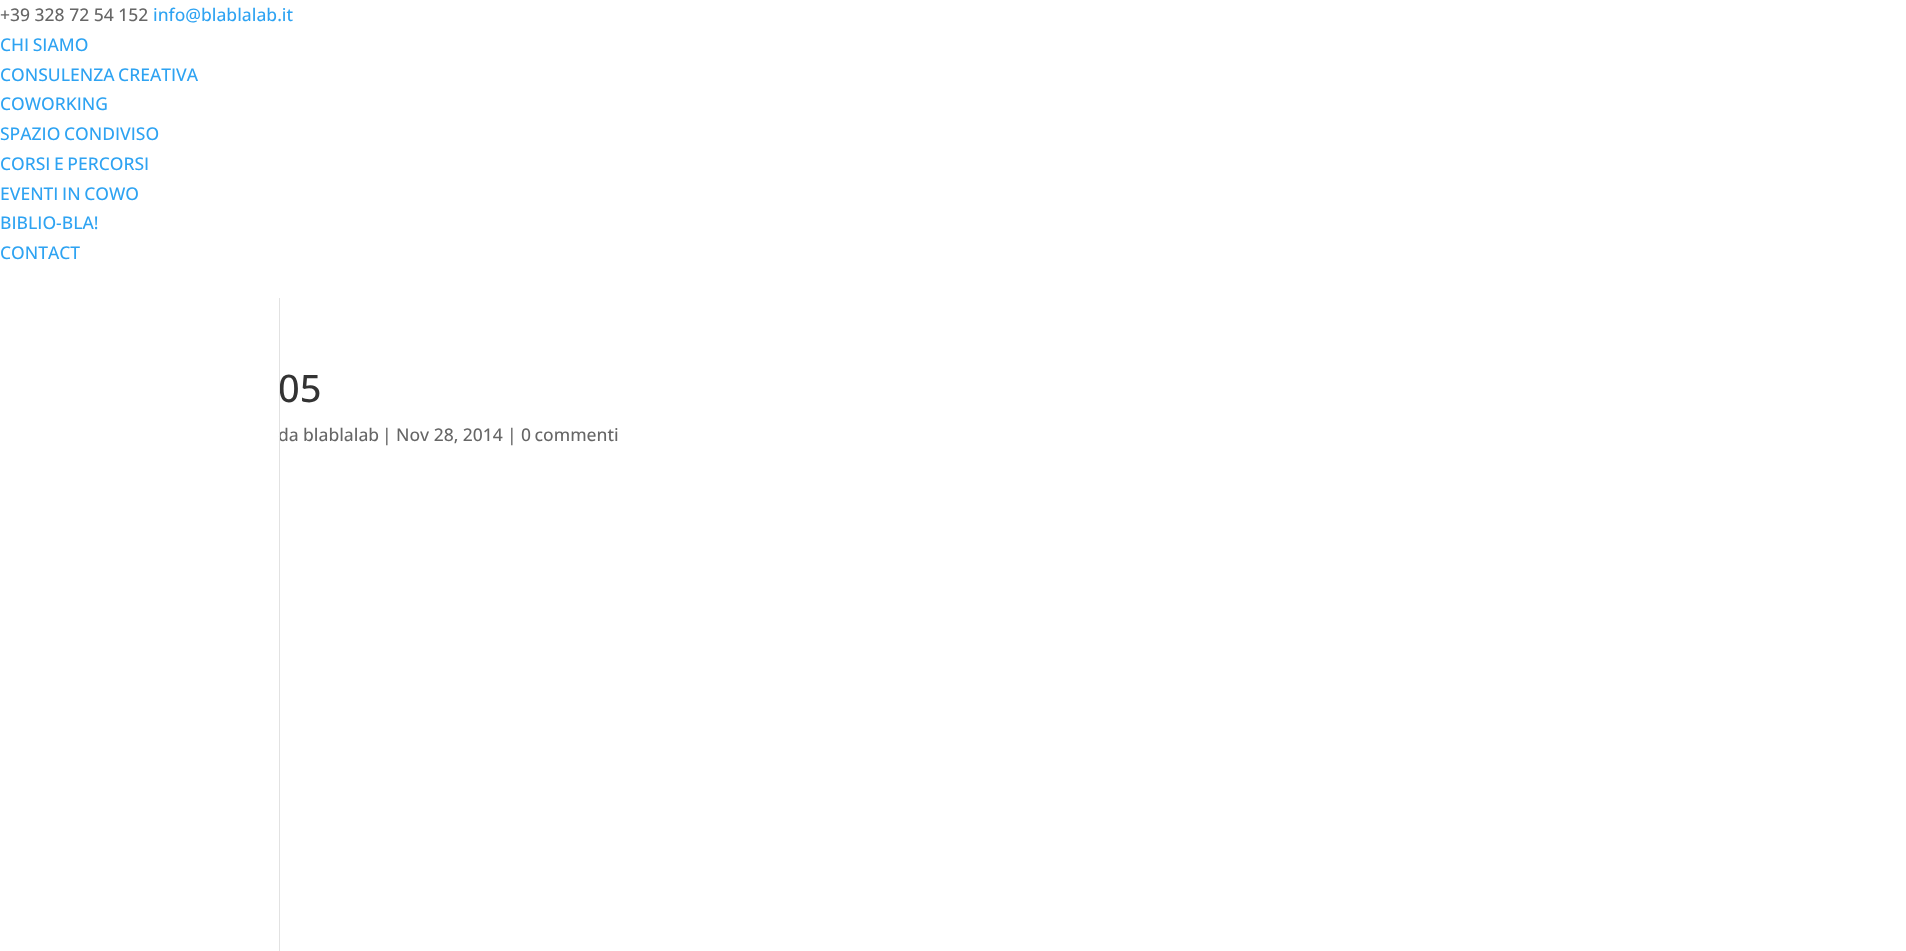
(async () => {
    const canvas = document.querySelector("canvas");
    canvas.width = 1906;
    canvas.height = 951;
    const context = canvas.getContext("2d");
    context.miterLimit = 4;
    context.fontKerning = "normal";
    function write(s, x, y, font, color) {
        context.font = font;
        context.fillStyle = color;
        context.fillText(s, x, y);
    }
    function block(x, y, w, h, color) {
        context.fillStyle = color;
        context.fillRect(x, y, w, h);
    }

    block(0, 0, 1906, 951, "rgb(255, 255, 255)");
    write("+39 328 72 54 152", 0, 21, "500 17.5px Open Sans", "rgb(102, 102, 102)");
    write("info@blablalab.it", 153, 21, "500 17.5px Open Sans", "rgb(46, 163, 242)");
    context.wordSpacing = "-1px";
    write("CHI SIAMO", 0, 51, "500 17.5px Open Sans", "rgb(46, 163, 242)");
    write("CONSULENZA CREATIVA", 0, 81, "500 17.5px Open Sans", "rgb(46, 163, 242)");
    context.wordSpacing = "0px";
    write("COWORKING", 0, 110, "500 17.5px Open Sans", "rgb(46, 163, 242)");
    context.wordSpacing = "-1px";
    write("SPAZIO CONDIVISO", 0, 140, "500 17.5px Open Sans", "rgb(46, 163, 242)");
    write("CORSI E PERCORSI", 0, 170, "500 17.5px Open Sans", "rgb(46, 163, 242)");
    write("EVENTI IN COWO", 0, 200, "500 17.5px Open Sans", "rgb(46, 163, 242)");
    context.wordSpacing = "0px";
    write("BIBLIO-BLA!", 0, 229, "500 17.5px Open Sans", "rgb(46, 163, 242)");
    write("CONTACT", 0, 259, "500 17.5px Open Sans", "rgb(46, 163, 242)");
    write("05", 278, 402, "500 38px Open Sans", "rgb(51, 51, 51)");
    write("da", 278, 441, "500 17.5px Open Sans", "rgb(102, 102, 102)");
    block(279, 298, 1, 653, "rgb(226, 226, 226)");
    write("blablalab", 303, 441, "500 17.5px Open Sans", "rgb(102, 102, 102)");
    write("|", 382, 441, "500 17.5px Open Sans", "rgb(102, 102, 102)");
    write("Nov 28, 2014", 396, 441, "500 17.5px Open Sans", "rgb(102, 102, 102)");
    write("|", 507, 441, "500 17.5px Open Sans", "rgb(102, 102, 102)");
    context.wordSpacing = "-1px";
    write("0 commenti", 521, 441, "500 17.5px Open Sans", "rgb(102, 102, 102)");
})();
